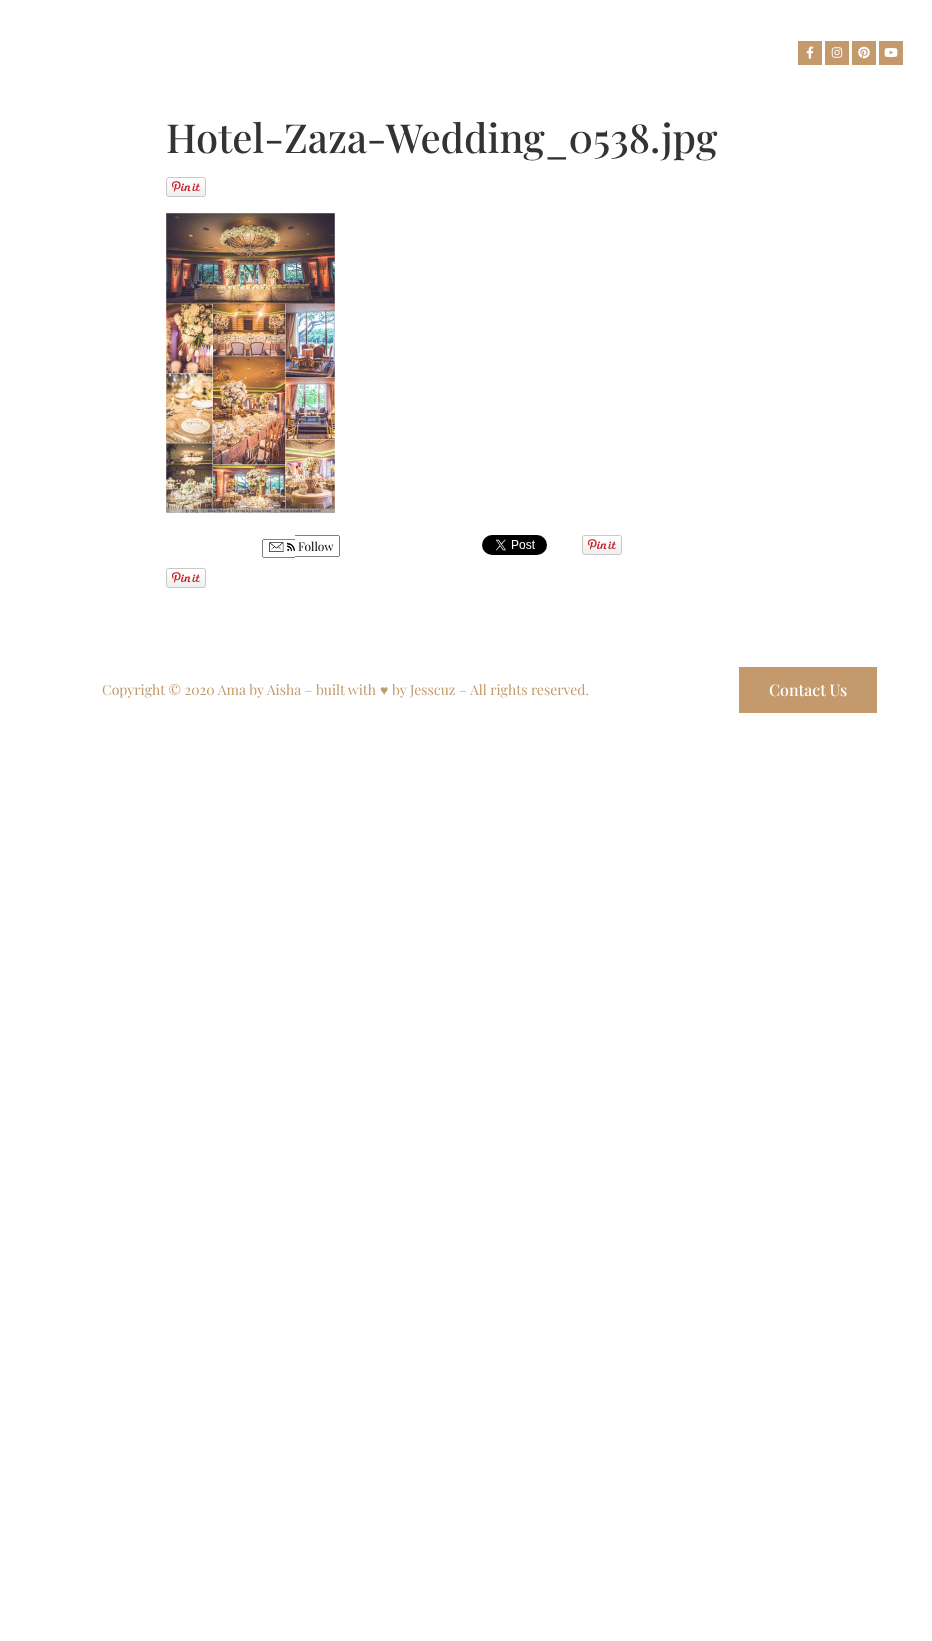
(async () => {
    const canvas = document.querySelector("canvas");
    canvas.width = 932;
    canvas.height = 1641;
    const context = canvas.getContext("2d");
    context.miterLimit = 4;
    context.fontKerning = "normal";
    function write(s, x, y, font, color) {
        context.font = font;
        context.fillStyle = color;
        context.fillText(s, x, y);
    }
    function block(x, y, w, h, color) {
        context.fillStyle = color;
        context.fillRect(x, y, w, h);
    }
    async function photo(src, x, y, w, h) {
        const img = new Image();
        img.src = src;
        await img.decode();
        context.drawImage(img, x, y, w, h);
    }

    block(0, 0, 932, 1641, "rgb(255, 255, 255)");
    block(798, 41, 24, 24, "rgb(196, 154, 108)");
    await photo("media/1.png", 806, 46, 8, 13);
    block(825, 41, 24, 24, "rgb(196, 154, 108)");
    await photo("media/2.png", 831, 47, 12, 11);
    block(852, 41, 24, 24, "rgb(196, 154, 108)");
    await photo("media/3.png", 858, 46, 12, 13);
    block(879, 41, 24, 24, "rgb(196, 154, 108)");
    await photo("media/4.png", 884, 48, 14, 9);
    write("Hotel-Zaza-Wedding_0538.jpg", 166, 153, "500 40px Playfair Display", "rgb(51, 51, 51)");
    await photo("media/5.png", 166, 177, 40, 20);
    await photo("media/6.png", 166, 213, 169, 300);
    await photo("media/7.png", 269, 542, 26, 10);
    write("Follow", 298, 551, "12px Playfair Display", "rgb(0, 0, 0)");
    block(263, 539, 32, 1, "rgb(128, 128, 128)");
    block(263, 557, 32, 1, "rgb(128, 128, 128)");
    block(262, 540, 1, 17, "rgb(128, 128, 128)");
    block(295, 535, 44, 1, "rgb(128, 128, 128)");
    block(339, 536, 1, 20, "rgb(128, 128, 128)");
    block(295, 556, 44, 1, "rgb(128, 128, 128)");
    await photo("media/8.png", 482, 535, 65, 20);
    await photo("media/5.png", 582, 535, 40, 20);
    await photo("media/5.png", 166, 568, 40, 20);
    write("Copyright © 2020 Ama by Aisha – built with", 102, 695, "14px Playfair Display", "rgb(196, 154, 108)");
    write("♥", 380, 695, "14px Liberation Sans", "rgb(196, 154, 108)");
    write("by Jesscuz – All rights reserved.", 392, 695, "14px Playfair Display", "rgb(196, 154, 108)");
    block(739, 667, 138, 46, "rgb(196, 154, 108)");
    write("Contact Us", 769, 696, "500 16px Playfair Display", "rgb(255, 255, 255)");
})();
